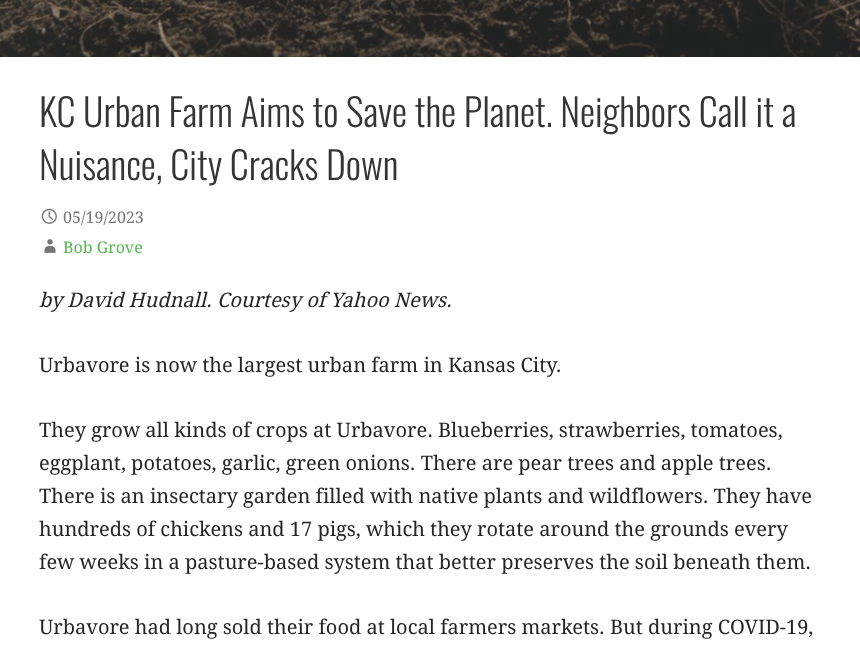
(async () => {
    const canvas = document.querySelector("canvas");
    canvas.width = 860;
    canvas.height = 645;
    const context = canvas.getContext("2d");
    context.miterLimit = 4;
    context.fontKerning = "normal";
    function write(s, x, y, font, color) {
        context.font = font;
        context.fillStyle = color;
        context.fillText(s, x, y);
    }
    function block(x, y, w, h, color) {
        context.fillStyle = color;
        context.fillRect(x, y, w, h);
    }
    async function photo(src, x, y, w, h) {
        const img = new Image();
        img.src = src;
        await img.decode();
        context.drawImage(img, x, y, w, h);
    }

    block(0, 0, 860, 645, "rgb(255, 255, 255)");
    await photo("media/1.png", 0, 0, 860, 57);
    write("KC Urban Farm Aims to Save the Planet. Neighbors Call it a", 39, 127, "300 38px Oswald", "rgb(53, 53, 53)");
    write("Nuisance, City Cracks Down", 39, 180, "300 38px Oswald", "rgb(53, 53, 53)");
    await photo("media/2.png", 41, 208, 16, 16);
    write("05/19/2023", 63, 223, "16px Droid Serif", "rgb(117, 117, 117)");
    await photo("media/3.png", 44, 239, 12, 14);
    write("Bob Grove", 63, 253, "16px Droid Serif", "rgb(85, 183, 78)");
    write("by David Hudnall. Courtesy of Yahoo News.", 39, 307, "italic 20px Droid Serif", "rgb(37, 37, 37)");
    write("Urbavore is now the largest urban farm in Kansas City.", 39, 372, "20px Droid Serif", "rgb(37, 37, 37)");
    write("They grow all kinds of crops at Urbavore. Blueberries, strawberries, tomatoes,", 39, 437, "20px Droid Serif", "rgb(37, 37, 37)");
    write("eggplant, potatoes, garlic, green onions. There are pear trees and apple trees.", 39, 470, "20px Droid Serif", "rgb(37, 37, 37)");
    write("There is an insectary garden filled with native plants and wildflowers. They have", 39, 503, "20px Droid Serif", "rgb(37, 37, 37)");
    write("hundreds of chickens and 17 pigs, which they rotate around the grounds every", 39, 536, "20px Droid Serif", "rgb(37, 37, 37)");
    write("few weeks in a pasture-based system that better preserves the soil beneath them.", 39, 569, "20px Droid Serif", "rgb(37, 37, 37)");
    write("Urbavore had long sold their food at local farmers markets. But during COVID-19,", 39, 634, "20px Droid Serif", "rgb(37, 37, 37)");
})();
